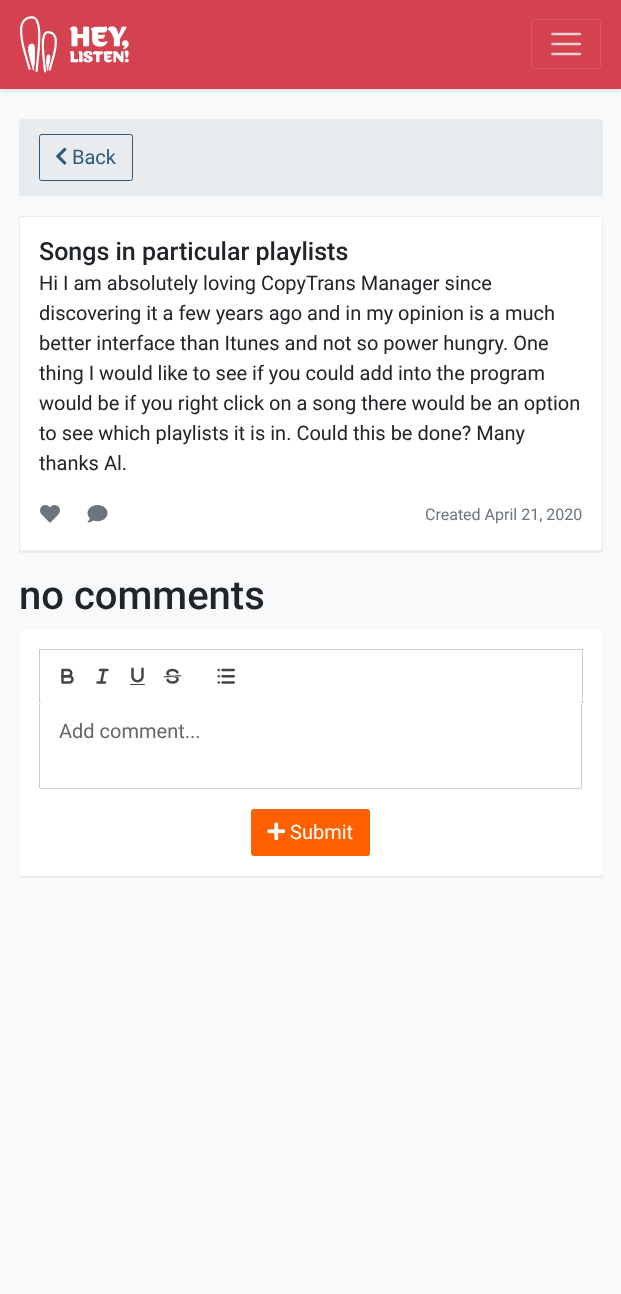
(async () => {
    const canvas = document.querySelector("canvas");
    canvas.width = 621;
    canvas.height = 1294;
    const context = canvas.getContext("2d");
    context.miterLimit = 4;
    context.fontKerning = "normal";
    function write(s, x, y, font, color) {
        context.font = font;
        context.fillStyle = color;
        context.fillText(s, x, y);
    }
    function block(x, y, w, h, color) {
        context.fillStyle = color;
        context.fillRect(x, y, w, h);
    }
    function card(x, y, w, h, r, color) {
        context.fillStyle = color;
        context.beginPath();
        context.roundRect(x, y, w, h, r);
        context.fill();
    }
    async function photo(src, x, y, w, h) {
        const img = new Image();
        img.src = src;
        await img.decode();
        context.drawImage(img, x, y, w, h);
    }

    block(0, 0, 621, 1294, "rgb(247, 249, 251)");
    context.fillStyle = "rgba(0, 0, 0, 0.1)";
    context.filter = "blur(2.5px)";
    context.beginPath();
    context.rect(0, 3, 621, 88);
    context.fill();
    context.filter = "none";
    block(0, 0, 621, 89, "rgb(212, 66, 80)");
    await photo("media/1.png", 20, 16, 109, 57);
    context.beginPath();
    context.roundRect(531.5, 19.5, 69, 49, 2);
    context.strokeStyle = "rgb(216, 85, 98)";
    context.stroke();
    context.beginPath();
    context.moveTo(552.5, 34);
    context.lineTo(580, 34);
    context.moveTo(552.5, 44);
    context.lineTo(580, 44);
    context.moveTo(552.5, 54);
    context.lineTo(580, 54);
    context.strokeStyle = "rgb(244, 208, 211)";
    context.lineWidth = 2.5;
    context.lineCap = "round";
    context.stroke();
    card(19, 119, 584, 77, 2.5, "rgb(233, 236, 239)");
    context.beginPath();
    context.roundRect(39.5, 134.5, 93, 46, 2);
    context.strokeStyle = "rgb(48, 90, 123)";
    context.lineWidth = 1;
    context.stroke();
    await photo("media/2.png", 56, 147, 11, 18);
    write("Back", 72, 164, "20px Roboto", "rgb(48, 90, 123)");
    context.fillStyle = "rgba(0, 0, 0, 0.05)";
    context.filter = "blur(0.5px)";
    context.beginPath();
    context.roundRect(19, 218, 584, 335, 2.5);
    context.fill();
    context.filter = "none";
    context.fillStyle = "rgb(255, 255, 255)";
    context.beginPath();
    context.roundRect(19.5, 216.5, 583, 334, 2);
    context.fill();
    context.strokeStyle = "rgb(232, 236, 237)";
    context.stroke();
    write("Songs in particular playlists", 39, 260, "500 25px Roboto", "rgb(33, 37, 41)");
    write("Hi I am absolutely loving CopyTrans Manager since", 39, 290, "20px Roboto", "rgb(33, 37, 41)");
    write("discovering it a few years ago and in my opinion is a much", 39, 320, "20px Roboto", "rgb(33, 37, 41)");
    write("better interface than Itunes and not so power hungry. One", 39, 350, "20px Roboto", "rgb(33, 37, 41)");
    write("thing I would like to see if you could add into the program", 39, 380, "20px Roboto", "rgb(33, 37, 41)");
    write("would be if you right click on a song there would be an option", 39, 410, "20px Roboto", "rgb(33, 37, 41)");
    write("to see which playlists it is in. Could this be done? Many", 39, 440, "20px Roboto", "rgb(33, 37, 41)");
    write("thanks Al.", 39, 470, "20px Roboto", "rgb(33, 37, 41)");
    await photo("media/3.png", 40, 505, 20, 18);
    await photo("media/4.png", 87, 505, 21, 18);
    write("Created April 21, 2020", 425, 520, "16px Roboto", "rgb(108, 117, 125)");
    write("no comments", 19, 609, "500 40px Roboto", "rgb(33, 37, 41)");
    context.fillStyle = "rgba(0, 0, 0, 0.05)";
    context.filter = "blur(0.5px)";
    context.beginPath();
    context.roundRect(19, 630, 584, 248, 2.5);
    context.fill();
    context.filter = "none";
    context.fillStyle = "rgb(255, 255, 255)";
    context.beginPath();
    context.roundRect(19.5, 629.5, 583, 246, 2);
    context.fill();
    context.strokeStyle = "rgb(248, 249, 250)";
    context.stroke();
    context.strokeStyle = "rgb(204, 204, 204)";
    context.strokeRect(39.5, 649.5, 543, 53);
    await photo("media/5.png", 61, 668, 13, 16);
    await photo("media/6.png", 96, 668, 13, 16);
    await photo("media/7.png", 130, 667, 15, 18);
    await photo("media/8.png", 163, 668, 19, 16);
    await photo("media/9.png", 217, 668, 18, 16);
    context.beginPath();
    context.moveTo(41, 702);
    context.lineTo(580, 702);
    context.bezierCurveTo(581, 702, 581, 704, 581, 705);
    context.lineTo(581, 786);
    context.bezierCurveTo(581, 787, 581, 788, 580, 788);
    context.lineTo(41, 788);
    context.bezierCurveTo(41, 788, 40, 787, 40, 786);
    context.lineTo(40, 705);
    context.bezierCurveTo(40, 704, 41, 702, 41, 702);
    context.closePath();
    context.fill();
    block(581, 704, 1, 84, "rgb(204, 204, 204)");
    block(40, 788, 541, 1, "rgb(204, 204, 204)");
    block(39, 704, 1, 84, "rgb(204, 204, 204)");
    write("Add comment...", 59, 738, "20px Roboto", "rgb(102, 102, 102)");
    context.fillStyle = "rgb(254, 95, 1)";
    context.beginPath();
    context.roundRect(251.5, 809.5, 118, 46, 2);
    context.fill();
    context.strokeStyle = "rgb(254, 95, 1)";
    context.stroke();
    await photo("media/10.png", 267, 822, 18, 18);
    write("Submit", 290, 839, "20px Roboto", "rgb(255, 255, 255)");
})();
